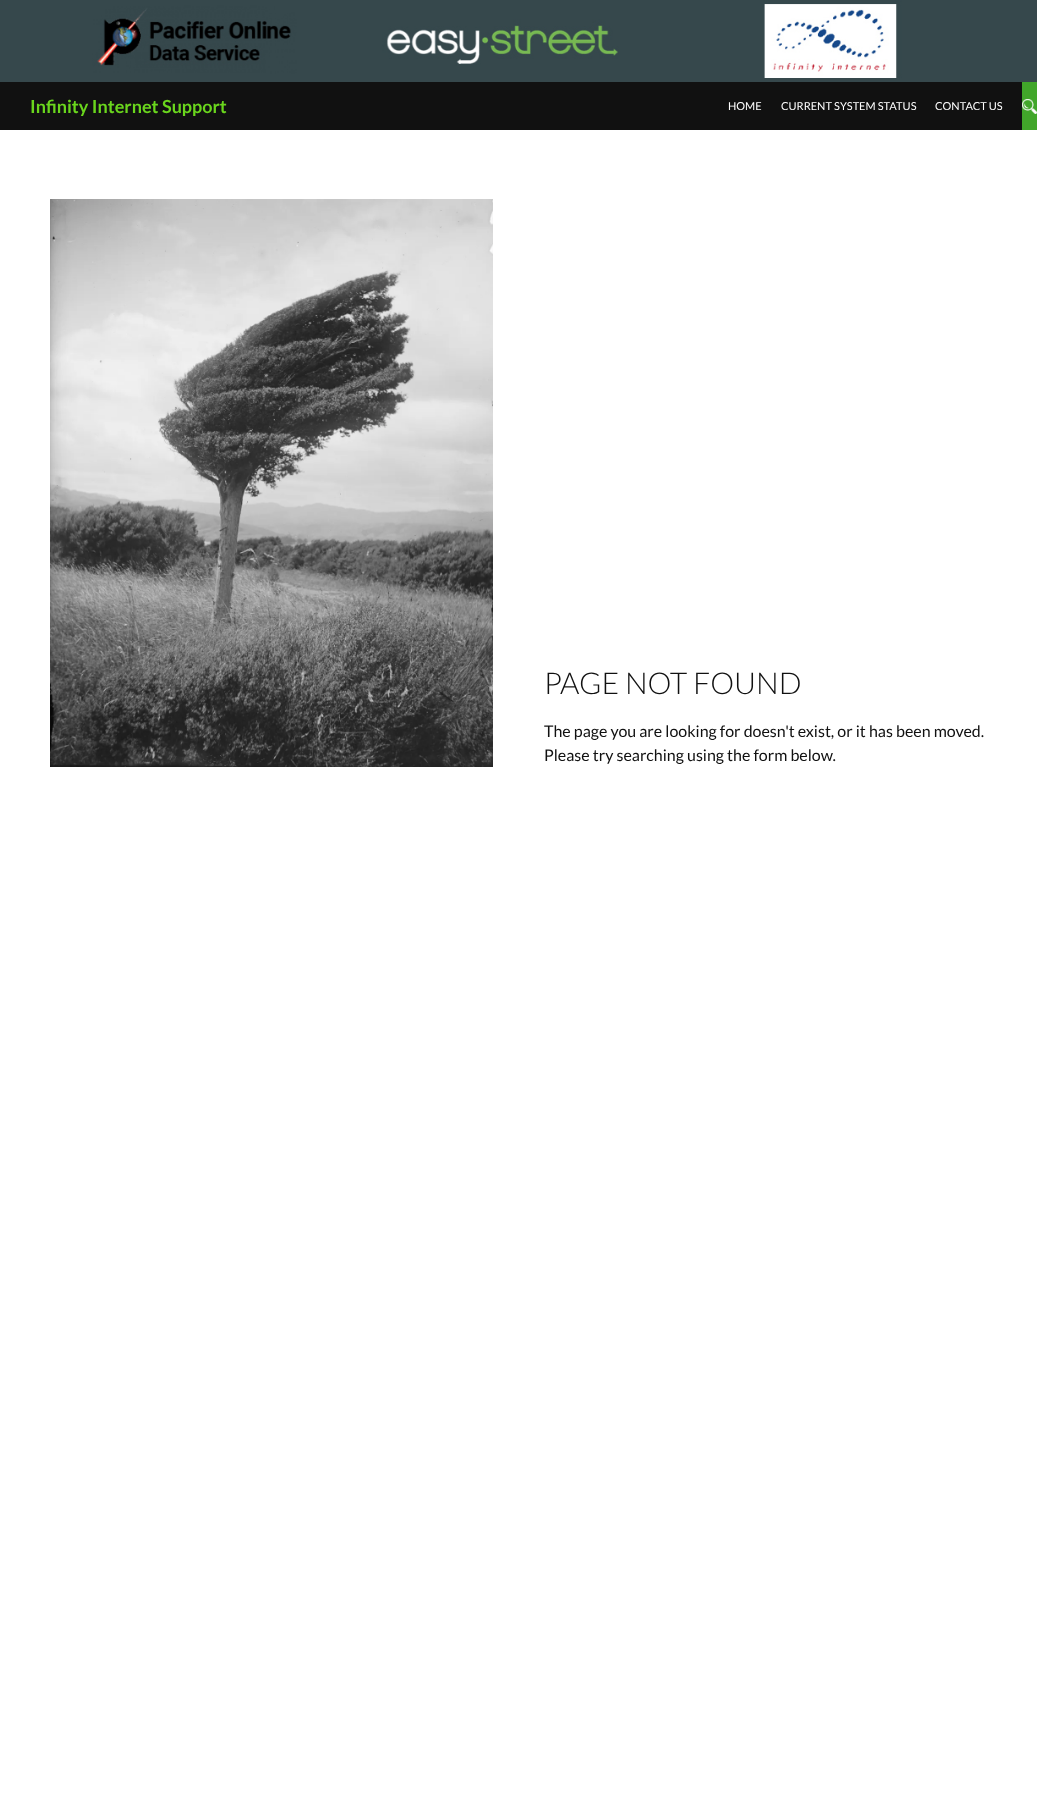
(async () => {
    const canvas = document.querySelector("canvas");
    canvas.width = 1037;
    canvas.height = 1813;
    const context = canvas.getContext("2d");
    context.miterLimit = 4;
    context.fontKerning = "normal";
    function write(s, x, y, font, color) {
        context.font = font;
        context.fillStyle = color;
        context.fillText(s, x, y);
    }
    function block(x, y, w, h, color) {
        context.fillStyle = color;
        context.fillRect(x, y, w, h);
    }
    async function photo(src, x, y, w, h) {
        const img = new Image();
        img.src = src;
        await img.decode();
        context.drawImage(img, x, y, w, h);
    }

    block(0, 0, 1037, 1813, "rgb(255, 255, 255)");
    block(0, 82, 1022, 48, "rgb(17, 17, 17)");
    await photo("media/1.png", 0, 0, 1037, 82);
    write("Infinity Internet Support", 30, 113, "bold 18px Lato", "rgb(106, 214, 29)");
    write("HOME", 728, 110, "11px Lato", "rgb(255, 255, 255)");
    write("CURRENT SYSTEM STATUS", 781, 110, "11px Lato", "rgb(255, 255, 255)");
    write("CONTACT US", 935, 110, "11px Lato", "rgb(255, 255, 255)");
    block(1022, 82, 15, 48, "rgb(65, 166, 42)");
    await photo("media/2.png", 1022, 99, 15, 15);
    await photo("media/3.png", 50, 199, 443, 568);
    write("PAGE NOT FOUND", 544, 694, "300 30px Lato", "rgb(17, 17, 17)");
    write("The page you are looking for doesn't exist, or it has been moved.", 544, 737, "16px Lato", "rgb(17, 17, 17)");
    write("Please try searching using the form below.", 544, 761, "16px Lato", "rgb(17, 17, 17)");
})();
